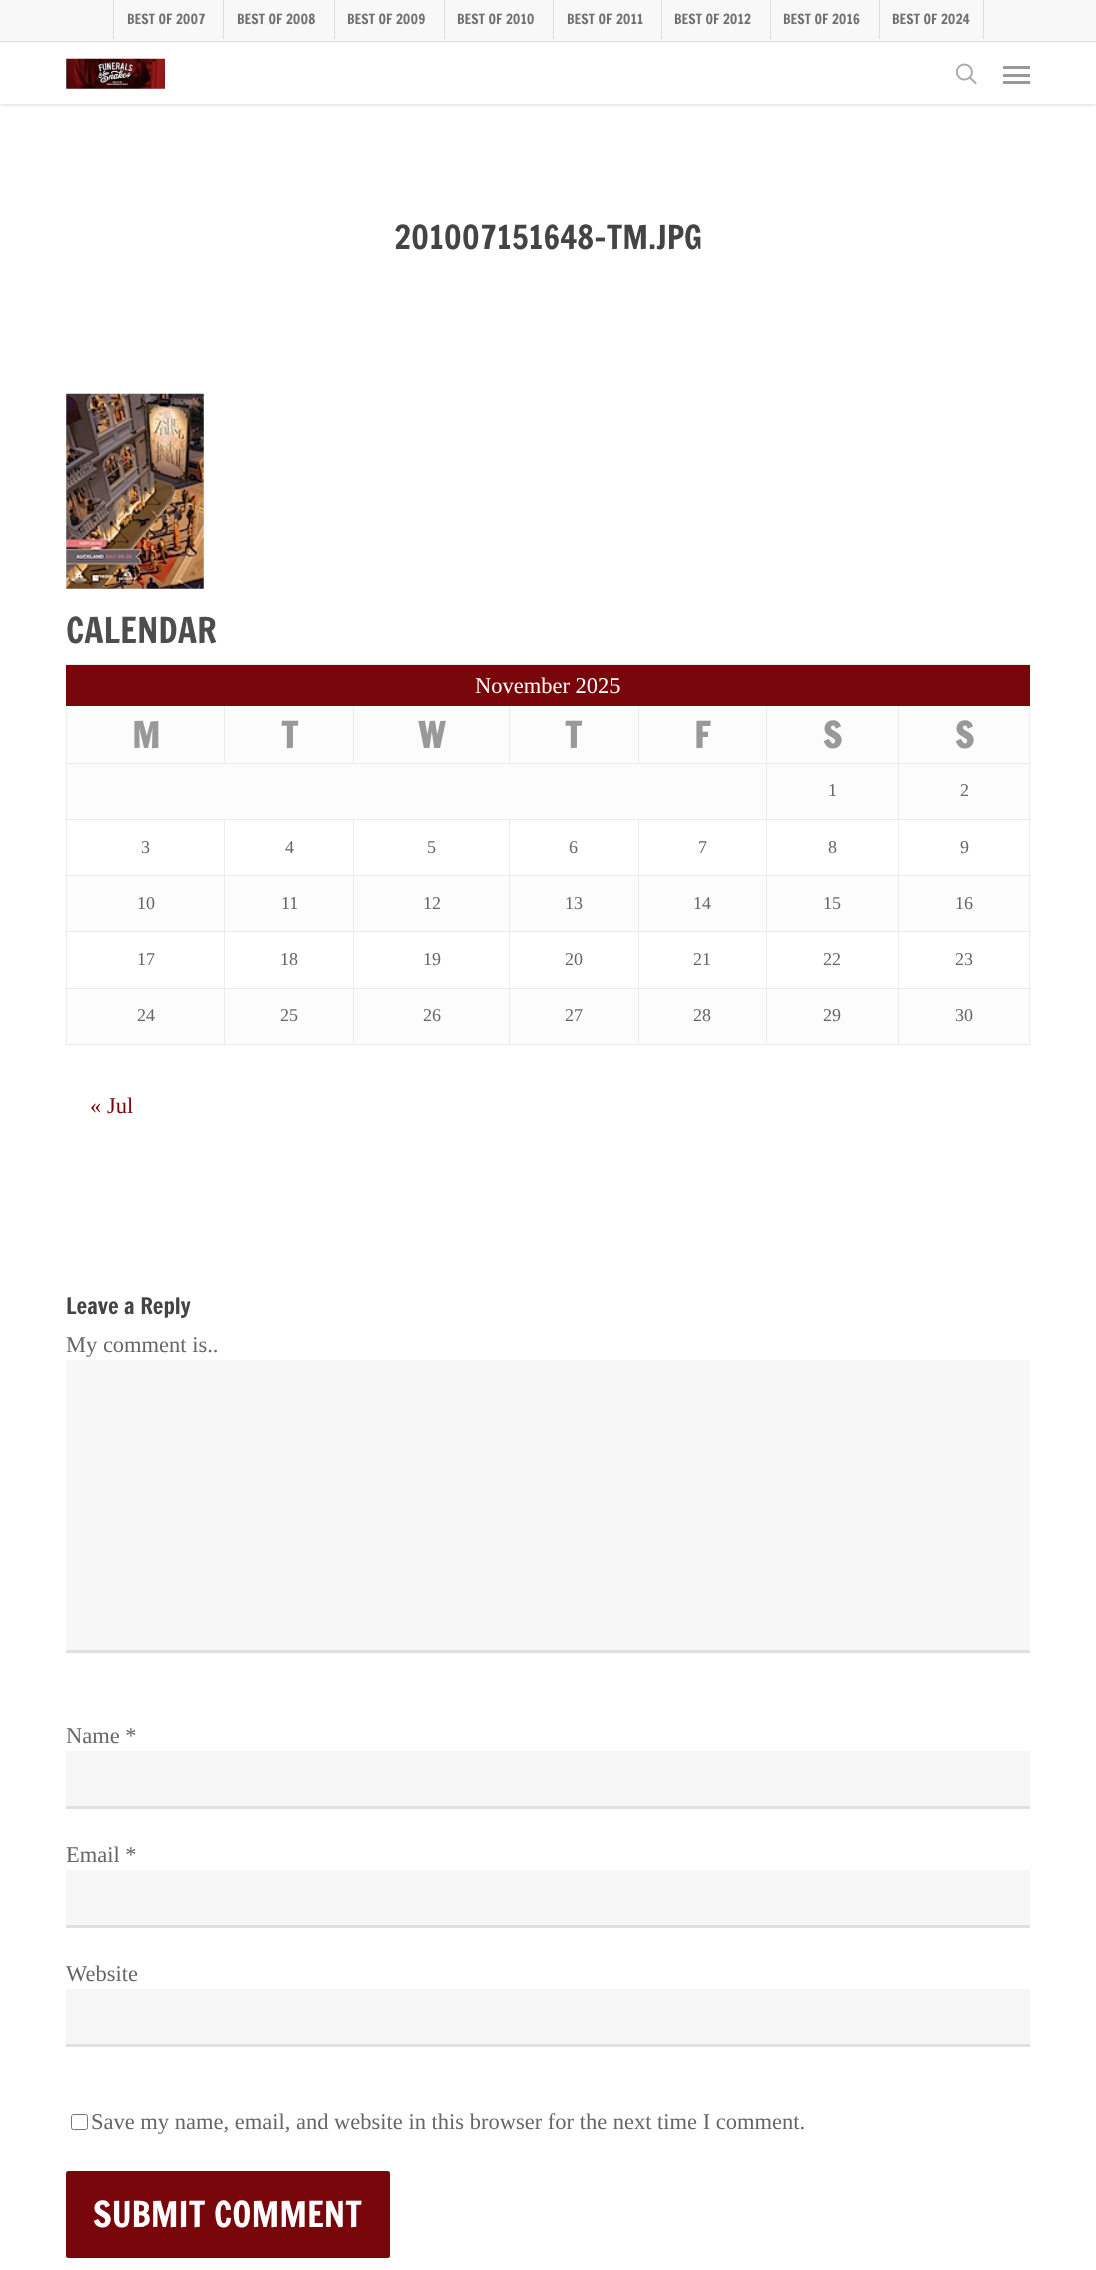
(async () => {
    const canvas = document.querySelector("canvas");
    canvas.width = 1096;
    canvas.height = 2270;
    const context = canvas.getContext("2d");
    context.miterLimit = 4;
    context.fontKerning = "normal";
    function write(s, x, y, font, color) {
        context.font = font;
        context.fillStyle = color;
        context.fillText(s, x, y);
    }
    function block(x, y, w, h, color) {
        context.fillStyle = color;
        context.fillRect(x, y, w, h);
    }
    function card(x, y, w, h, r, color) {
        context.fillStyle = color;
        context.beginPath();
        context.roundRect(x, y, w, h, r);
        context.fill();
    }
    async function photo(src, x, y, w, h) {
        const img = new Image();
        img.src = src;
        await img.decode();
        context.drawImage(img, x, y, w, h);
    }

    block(0, 0, 1096, 2270, "rgb(255, 255, 255)");
    context.fillStyle = "rgba(0, 0, 0, 0.22)";
    context.filter = "blur(2px)";
    context.beginPath();
    context.rect(0, 0, 1096, 104);
    context.fill();
    context.filter = "none";
    block(0, 43, 1096, 61, "rgb(255, 255, 255)");
    block(0, 0, 1096, 43, "rgb(248, 248, 248)");
    block(0, 41, 1096, 1, "rgb(221, 221, 221)");
    block(113, 0, 1, 39, "rgb(221, 221, 221)");
    write("BEST OF 2007", 127, 24, "13.75px Francois One", "rgb(112, 112, 112)");
    block(223, 0, 1, 39, "rgb(221, 221, 221)");
    write("BEST OF 2008", 237, 24, "13.75px Francois One", "rgb(112, 112, 112)");
    block(334, 0, 1, 39, "rgb(221, 221, 221)");
    write("BEST OF 2009", 347, 24, "13.75px Francois One", "rgb(112, 112, 112)");
    block(444, 0, 1, 39, "rgb(221, 221, 221)");
    write("BEST OF 2010", 457, 24, "13.75px Francois One", "rgb(112, 112, 112)");
    block(553, 0, 1, 39, "rgb(221, 221, 221)");
    write("BEST OF 2011", 567, 24, "13.75px Francois One", "rgb(112, 112, 112)");
    block(661, 0, 1, 39, "rgb(221, 221, 221)");
    write("BEST OF 2012", 674, 24, "13.75px Francois One", "rgb(112, 112, 112)");
    block(770, 0, 1, 39, "rgb(221, 221, 221)");
    write("BEST OF 2016", 783, 24, "13.75px Francois One", "rgb(112, 112, 112)");
    block(983, 0, 1, 39, "rgb(221, 221, 221)");
    block(879, 0, 1, 39, "rgb(221, 221, 221)");
    write("BEST OF 2024", 892, 24, "13.75px Francois One", "rgb(112, 112, 112)");
    await photo("media/1.png", 66, 58, 99, 31);
    await photo("media/2.png", 956, 63, 21, 22);
    block(1003, 66, 27, 3, "rgb(153, 153, 153)");
    block(1003, 81, 27, 3, "rgb(153, 153, 153)");
    block(1003, 74, 27, 3, "rgb(153, 153, 153)");
    write("201007151648-TM.JPG", 394, 249, "32.5px Francois One", "rgb(68, 68, 68)");
    await photo("media/3.png", 66, 393, 138, 196);
    write("CALENDAR", 66, 643, "35px Francois One", "rgb(77, 77, 77)");
    block(66, 664, 964, 1, "rgb(236, 236, 236)");
    block(66, 665, 964, 41, "rgb(121, 6, 11)");
    write("November 2025", 475, 693, "22.5px Liberation Serif", "rgb(255, 255, 255)");
    block(67, 708, 962, 55, "rgb(252, 252, 252)");
    block(67, 764, 962, 55, "rgb(252, 252, 252)");
    block(67, 876, 962, 57, "rgb(252, 252, 252)");
    block(67, 989, 962, 55, "rgb(252, 252, 252)");
    block(1029, 706, 1, 339, "rgb(236, 236, 236)");
    block(898, 1044, 132, 1, "rgb(236, 236, 236)");
    block(898, 988, 1, 57, "rgb(236, 236, 236)");
    block(898, 988, 132, 1, "rgb(236, 236, 236)");
    block(898, 931, 1, 58, "rgb(236, 236, 236)");
    block(898, 931, 132, 1, "rgb(236, 236, 236)");
    block(898, 875, 1, 58, "rgb(236, 236, 236)");
    block(898, 875, 132, 1, "rgb(236, 236, 236)");
    block(898, 819, 1, 57, "rgb(236, 236, 236)");
    block(898, 819, 132, 1, "rgb(236, 236, 236)");
    block(898, 763, 1, 57, "rgb(236, 236, 236)");
    block(898, 763, 132, 1, "rgb(236, 236, 236)");
    block(898, 706, 1, 58, "rgb(236, 236, 236)");
    block(766, 1044, 133, 1, "rgb(236, 236, 236)");
    block(766, 988, 1, 57, "rgb(236, 236, 236)");
    block(766, 988, 133, 1, "rgb(236, 236, 236)");
    block(766, 931, 1, 58, "rgb(236, 236, 236)");
    block(766, 931, 133, 1, "rgb(236, 236, 236)");
    block(766, 875, 1, 58, "rgb(236, 236, 236)");
    block(766, 875, 133, 1, "rgb(236, 236, 236)");
    block(766, 819, 1, 57, "rgb(236, 236, 236)");
    block(766, 819, 133, 1, "rgb(236, 236, 236)");
    block(766, 763, 1, 57, "rgb(236, 236, 236)");
    block(766, 763, 133, 1, "rgb(236, 236, 236)");
    block(766, 706, 1, 58, "rgb(236, 236, 236)");
    block(638, 763, 130, 1, "rgb(236, 236, 236)");
    block(638, 706, 1, 58, "rgb(236, 236, 236)");
    block(509, 763, 130, 1, "rgb(236, 236, 236)");
    block(509, 706, 1, 58, "rgb(236, 236, 236)");
    block(353, 763, 157, 1, "rgb(236, 236, 236)");
    block(353, 706, 1, 58, "rgb(236, 236, 236)");
    block(224, 763, 130, 1, "rgb(236, 236, 236)");
    block(224, 706, 1, 58, "rgb(236, 236, 236)");
    block(638, 1044, 130, 1, "rgb(236, 236, 236)");
    block(638, 988, 1, 57, "rgb(236, 236, 236)");
    block(638, 988, 130, 1, "rgb(236, 236, 236)");
    block(638, 931, 1, 58, "rgb(236, 236, 236)");
    block(638, 931, 130, 1, "rgb(236, 236, 236)");
    block(638, 875, 1, 58, "rgb(236, 236, 236)");
    block(638, 875, 130, 1, "rgb(236, 236, 236)");
    block(638, 819, 1, 57, "rgb(236, 236, 236)");
    block(509, 1044, 130, 1, "rgb(236, 236, 236)");
    block(509, 988, 1, 57, "rgb(236, 236, 236)");
    block(509, 988, 130, 1, "rgb(236, 236, 236)");
    block(509, 931, 1, 58, "rgb(236, 236, 236)");
    block(509, 931, 130, 1, "rgb(236, 236, 236)");
    block(509, 875, 1, 58, "rgb(236, 236, 236)");
    block(509, 875, 130, 1, "rgb(236, 236, 236)");
    block(509, 819, 1, 57, "rgb(236, 236, 236)");
    block(353, 1044, 157, 1, "rgb(236, 236, 236)");
    block(353, 988, 1, 57, "rgb(236, 236, 236)");
    block(353, 988, 157, 1, "rgb(236, 236, 236)");
    block(353, 931, 1, 58, "rgb(236, 236, 236)");
    block(353, 931, 157, 1, "rgb(236, 236, 236)");
    block(353, 875, 1, 58, "rgb(236, 236, 236)");
    block(353, 875, 157, 1, "rgb(236, 236, 236)");
    block(353, 819, 1, 57, "rgb(236, 236, 236)");
    block(224, 1044, 130, 1, "rgb(236, 236, 236)");
    block(224, 988, 1, 57, "rgb(236, 236, 236)");
    block(224, 988, 130, 1, "rgb(236, 236, 236)");
    block(224, 931, 1, 58, "rgb(236, 236, 236)");
    block(224, 931, 130, 1, "rgb(236, 236, 236)");
    block(224, 875, 1, 58, "rgb(236, 236, 236)");
    block(224, 875, 130, 1, "rgb(236, 236, 236)");
    block(224, 819, 1, 57, "rgb(236, 236, 236)");
    block(66, 1044, 159, 1, "rgb(236, 236, 236)");
    block(66, 988, 1, 57, "rgb(236, 236, 236)");
    block(66, 988, 159, 1, "rgb(236, 236, 236)");
    block(66, 931, 1, 58, "rgb(236, 236, 236)");
    block(66, 931, 159, 1, "rgb(236, 236, 236)");
    block(66, 875, 1, 58, "rgb(236, 236, 236)");
    block(66, 875, 159, 1, "rgb(236, 236, 236)");
    block(66, 819, 1, 57, "rgb(236, 236, 236)");
    block(66, 819, 702, 1, "rgb(236, 236, 236)");
    block(66, 763, 1, 57, "rgb(236, 236, 236)");
    block(66, 763, 159, 1, "rgb(236, 236, 236)");
    block(66, 706, 1, 58, "rgb(236, 236, 236)");
    write("M", 132, 748, "bold 35px Francois One", "rgb(153, 153, 153)");
    write("T", 281, 748, "bold 35px Francois One", "rgb(153, 153, 153)");
    write("W", 418, 748, "bold 35px Francois One", "rgb(153, 153, 153)");
    write("T", 565, 748, "bold 35px Francois One", "rgb(153, 153, 153)");
    write("F", 694, 748, "bold 35px Francois One", "rgb(153, 153, 153)");
    write("S", 823, 748, "bold 35px Francois One", "rgb(153, 153, 153)");
    write("S", 955, 748, "bold 35px Francois One", "rgb(153, 153, 153)");
    write("1", 828, 796, "18px Liberation Serif", "rgb(102, 102, 102)");
    write("2", 960, 796, "18px Liberation Serif", "rgb(102, 102, 102)");
    write("3", 141, 853, "18px Liberation Serif", "rgb(102, 102, 102)");
    write("4", 285, 853, "18px Liberation Serif", "rgb(102, 102, 102)");
    write("5", 427, 853, "18px Liberation Serif", "rgb(102, 102, 102)");
    write("6", 569, 853, "18px Liberation Serif", "rgb(102, 102, 102)");
    write("7", 698, 853, "18px Liberation Serif", "rgb(102, 102, 102)");
    write("8", 828, 853, "18px Liberation Serif", "rgb(102, 102, 102)");
    write("9", 960, 853, "18px Liberation Serif", "rgb(102, 102, 102)");
    write("10", 137, 909, "18px Liberation Serif", "rgb(102, 102, 102)");
    write("11", 281, 909, "18px Liberation Serif", "rgb(102, 102, 102)");
    write("12", 423, 909, "18px Liberation Serif", "rgb(102, 102, 102)");
    write("13", 565, 909, "18px Liberation Serif", "rgb(102, 102, 102)");
    write("14", 693, 909, "18px Liberation Serif", "rgb(102, 102, 102)");
    write("15", 823, 909, "18px Liberation Serif", "rgb(102, 102, 102)");
    write("16", 955, 909, "18px Liberation Serif", "rgb(102, 102, 102)");
    write("17", 137, 965, "18px Liberation Serif", "rgb(102, 102, 102)");
    write("18", 280, 965, "18px Liberation Serif", "rgb(102, 102, 102)");
    write("19", 423, 965, "18px Liberation Serif", "rgb(102, 102, 102)");
    write("20", 565, 965, "18px Liberation Serif", "rgb(102, 102, 102)");
    write("21", 693, 965, "18px Liberation Serif", "rgb(102, 102, 102)");
    write("22", 823, 965, "18px Liberation Serif", "rgb(102, 102, 102)");
    write("23", 955, 965, "18px Liberation Serif", "rgb(102, 102, 102)");
    write("24", 137, 1021, "18px Liberation Serif", "rgb(102, 102, 102)");
    write("25", 280, 1021, "18px Liberation Serif", "rgb(102, 102, 102)");
    write("26", 423, 1021, "18px Liberation Serif", "rgb(102, 102, 102)");
    write("27", 565, 1021, "18px Liberation Serif", "rgb(102, 102, 102)");
    write("28", 693, 1021, "18px Liberation Serif", "rgb(102, 102, 102)");
    write("29", 823, 1021, "18px Liberation Serif", "rgb(102, 102, 102)");
    write("30", 955, 1021, "18px Liberation Serif", "rgb(102, 102, 102)");
    write("« Jul", 90, 1113, "22.5px Liberation Serif", "rgb(121, 6, 11)");
    write("Leave a Reply", 66, 1314, "22.5px Francois One", "rgb(68, 68, 68)");
    write("My comment is..", 66, 1352, "22.5px Liberation Serif", "rgb(102, 102, 102)");
    block(66, 1360, 964, 290, "rgb(247, 247, 247)");
    block(66, 1650, 964, 3, "rgb(224, 224, 224)");
    write("Name *", 66, 1743, "22.5px Liberation Serif", "rgb(102, 102, 102)");
    block(66, 1751, 964, 55, "rgb(246, 246, 246)");
    block(66, 1806, 964, 3, "rgb(224, 224, 224)");
    write("Email *", 66, 1862, "22.5px Liberation Serif", "rgb(102, 102, 102)");
    block(66, 1870, 964, 55, "rgb(246, 246, 246)");
    block(66, 1925, 964, 3, "rgb(224, 224, 224)");
    write("Website", 66, 1981, "22.5px Liberation Serif", "rgb(102, 102, 102)");
    block(66, 1989, 964, 55, "rgb(246, 246, 246)");
    block(66, 2044, 964, 3, "rgb(224, 224, 224)");
    context.beginPath();
    context.roundRect(71.5, 2114.5, 16, 15, 2);
    context.strokeStyle = "rgb(118, 118, 118)";
    context.stroke();
    write("Save my name, email, and website in this browser for the next time I comment.", 91, 2129, "22.5px Liberation Serif", "rgb(102, 102, 102)");
    card(66, 2171, 324, 87, 2.5, "rgb(121, 6, 11)");
    write("SUBMIT COMMENT", 93, 2227, "35px Francois One", "rgb(255, 255, 255)");
})();
